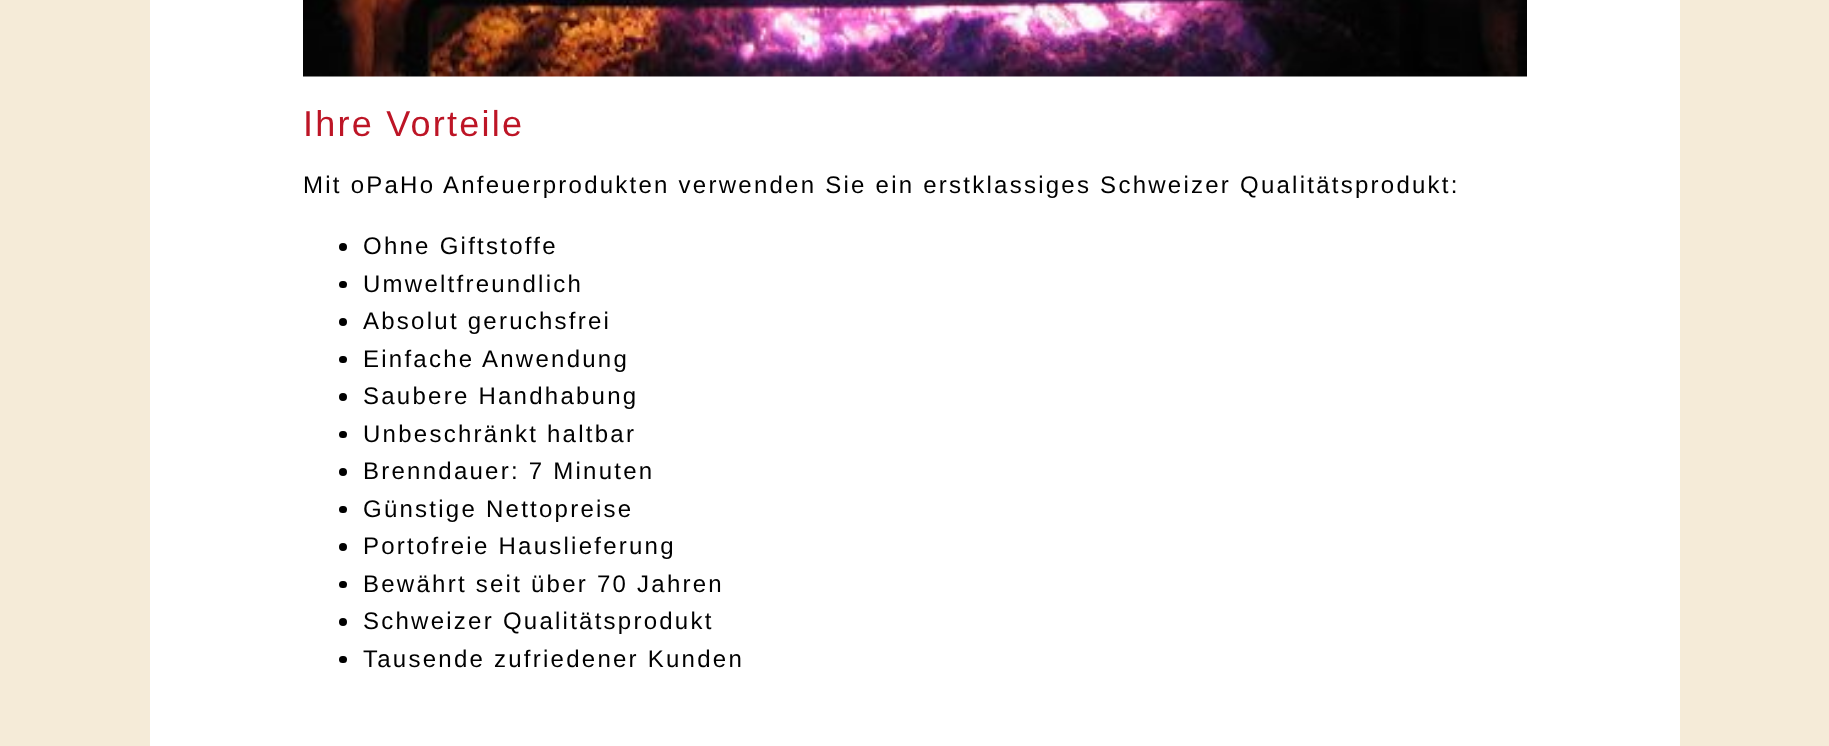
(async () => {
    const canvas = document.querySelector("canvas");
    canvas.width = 1829;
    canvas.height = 746;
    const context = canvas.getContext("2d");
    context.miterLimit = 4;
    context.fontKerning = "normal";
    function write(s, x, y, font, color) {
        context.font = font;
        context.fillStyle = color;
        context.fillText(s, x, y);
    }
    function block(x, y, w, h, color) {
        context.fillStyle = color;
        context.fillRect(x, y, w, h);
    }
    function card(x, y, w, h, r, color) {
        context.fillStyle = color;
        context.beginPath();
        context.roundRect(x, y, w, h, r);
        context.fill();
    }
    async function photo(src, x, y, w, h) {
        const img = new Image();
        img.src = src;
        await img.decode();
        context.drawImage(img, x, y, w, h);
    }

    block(0, 0, 1829, 746, "rgb(245, 235, 216)");
    block(150, 0, 1530, 746, "rgb(255, 255, 255)");
    await photo("media/1.png", 303, 0, 1224, 77);
    context.letterSpacing = "2.25px";
    write("Ihre Vorteile", 303, 136, "36px Liberation Sans", "rgb(189, 21, 38)");
    write("Mit oPaHo Anfeuerprodukten verwenden Sie ein erstklassiges Schweizer Qualitätsprodukt:", 303, 193, "24px Liberation Sans", "rgb(0, 0, 0)");
    context.beginPath();
    context.arc(343, 247, 4, 0, Math.PI * 2);
    context.fill();
    write("Ohne Giftstoffe", 363, 254, "24px Liberation Sans", "rgb(0, 0, 0)");
    card(339, 281, 8, 7, 3.5, "rgb(0, 0, 0)");
    write("Umweltfreundlich", 363, 292, "24px Liberation Sans", "rgb(0, 0, 0)");
    context.beginPath();
    context.arc(343, 322, 4, 0, Math.PI * 2);
    context.fill();
    write("Absolut geruchsfrei", 363, 329, "24px Liberation Sans", "rgb(0, 0, 0)");
    card(339, 356, 8, 7, 3.5, "rgb(0, 0, 0)");
    write("Einfache Anwendung", 363, 367, "24px Liberation Sans", "rgb(0, 0, 0)");
    context.beginPath();
    context.arc(343, 397, 4, 0, Math.PI * 2);
    context.fill();
    write("Saubere Handhabung", 363, 404, "24px Liberation Sans", "rgb(0, 0, 0)");
    card(339, 431, 8, 7, 3.5, "rgb(0, 0, 0)");
    write("Unbeschränkt haltbar", 363, 442, "24px Liberation Sans", "rgb(0, 0, 0)");
    context.beginPath();
    context.arc(343, 472, 4, 0, Math.PI * 2);
    context.fill();
    write("Brenndauer: 7 Minuten", 363, 479, "24px Liberation Sans", "rgb(0, 0, 0)");
    card(339, 506, 8, 7, 3.5, "rgb(0, 0, 0)");
    write("Günstige Nettopreise", 363, 517, "24px Liberation Sans", "rgb(0, 0, 0)");
    context.beginPath();
    context.arc(343, 547, 4, 0, Math.PI * 2);
    context.fill();
    write("Portofreie Hauslieferung", 363, 554, "24px Liberation Sans", "rgb(0, 0, 0)");
    card(339, 581, 8, 7, 3.5, "rgb(0, 0, 0)");
    write("Bewährt seit über 70 Jahren", 363, 592, "24px Liberation Sans", "rgb(0, 0, 0)");
    context.beginPath();
    context.arc(343, 622, 4, 0, Math.PI * 2);
    context.fill();
    write("Schweizer Qualitätsprodukt", 363, 629, "24px Liberation Sans", "rgb(0, 0, 0)");
    card(339, 656, 8, 7, 3.5, "rgb(0, 0, 0)");
    write("Tausende zufriedener Kunden", 363, 667, "24px Liberation Sans", "rgb(0, 0, 0)");
})();
